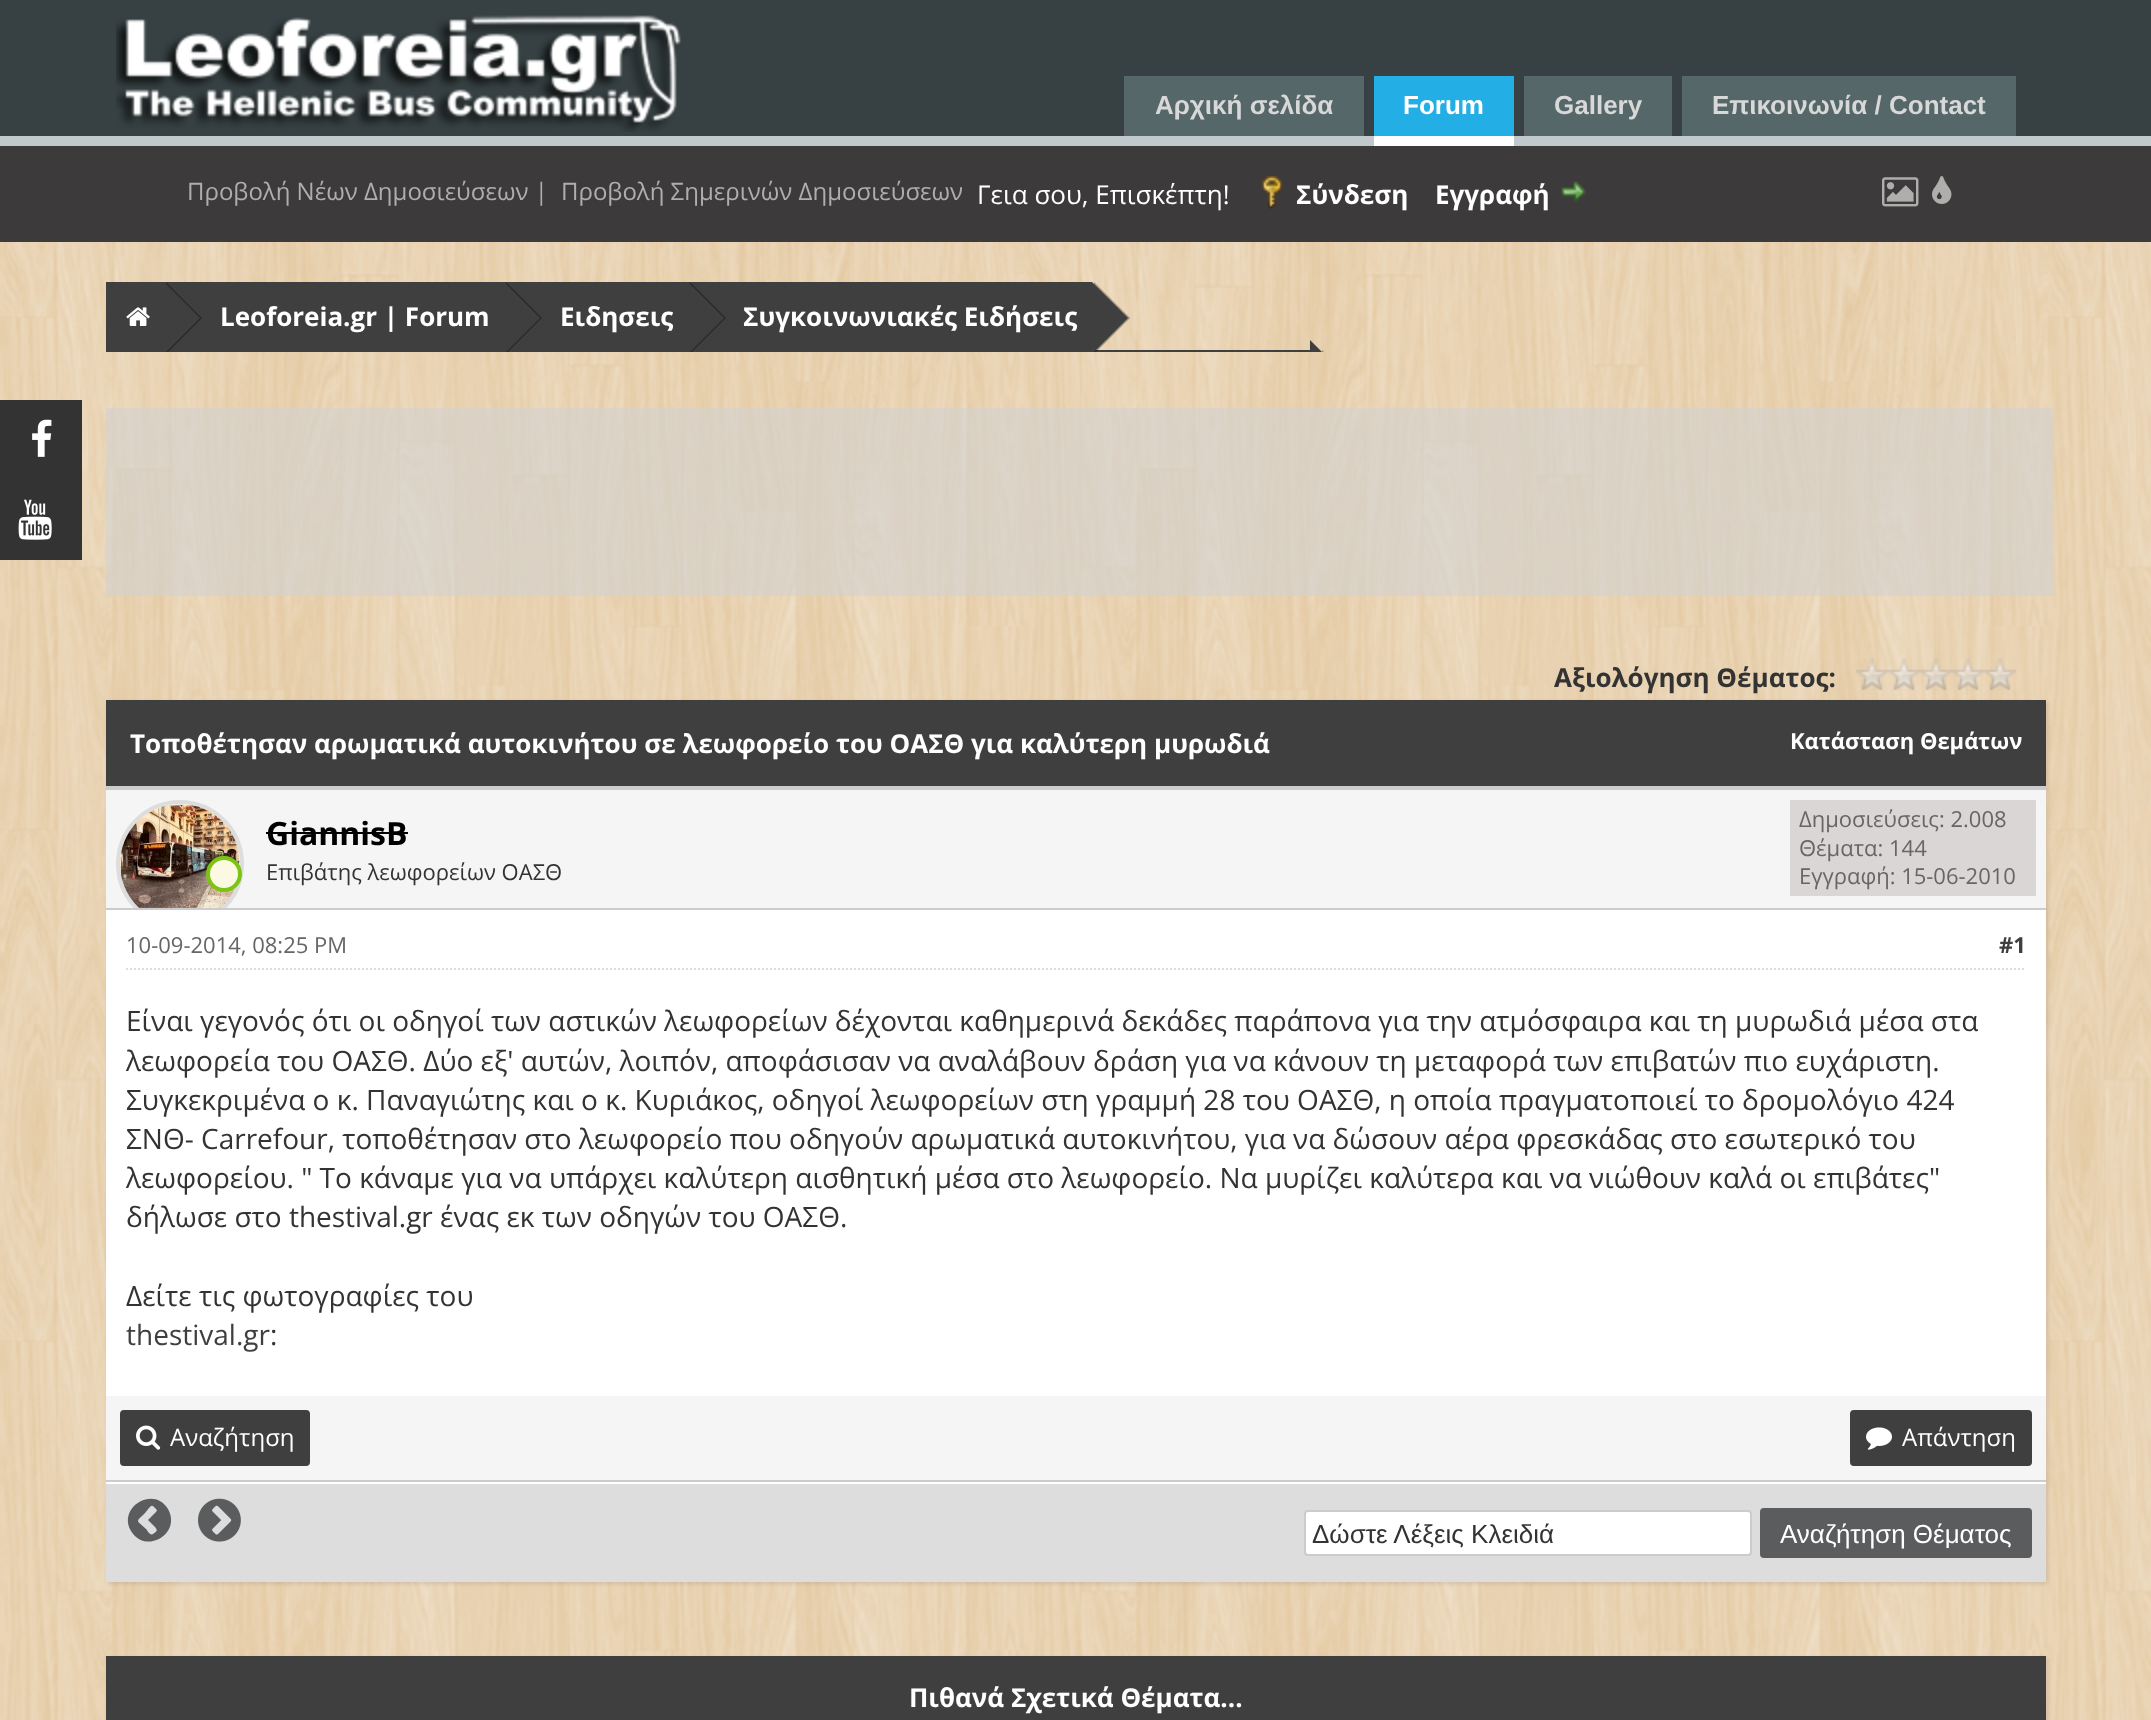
(async () => {
    const canvas = document.querySelector("canvas");
    canvas.width = 2151;
    canvas.height = 1720;
    const context = canvas.getContext("2d");
    context.miterLimit = 4;
    context.fontKerning = "normal";
    function write(s, x, y, font, color) {
        context.font = font;
        context.fillStyle = color;
        context.fillText(s, x, y);
    }
    function block(x, y, w, h, color) {
        context.fillStyle = color;
        context.fillRect(x, y, w, h);
    }
    function card(x, y, w, h, r, color) {
        context.fillStyle = color;
        context.beginPath();
        context.roundRect(x, y, w, h, r);
        context.fill();
    }
    async function photo(src, x, y, w, h) {
        const img = new Image();
        img.src = src;
        await img.decode();
        context.drawImage(img, x, y, w, h);
    }

    block(0, 0, 2151, 1720, "rgb(255, 255, 255)");
    await photo("media/1.png", 0, 242, 2151, 1478);
    block(0, 400, 82, 160, "rgb(51, 51, 51)");
    await photo("media/2.png", 32, 419, 20, 38);
    block(0, 0, 2151, 136, "rgb(55, 65, 67)");
    block(0, 136, 2151, 10, "rgb(192, 202, 204)");
    await photo("media/3.png", 116, 15, 565, 117);
    block(1124, 76, 240, 60, "rgb(86, 103, 105)");
    write("Αρχική σελίδα", 1155, 114, "bold 26px Liberation Sans", "rgb(216, 216, 216)");
    block(1374, 76, 140, 60, "rgb(35, 174, 229)");
    block(1374, 136, 140, 10, "rgb(255, 255, 255)");
    write("Forum", 1403, 114, "bold 26px Liberation Sans", "rgb(255, 255, 255)");
    block(1524, 76, 148, 60, "rgb(86, 103, 105)");
    write("Gallery", 1554, 114, "bold 26px Liberation Sans", "rgb(216, 216, 216)");
    block(1682, 76, 334, 60, "rgb(86, 103, 105)");
    write("Επικοινωνία / Contact", 1712, 114, "bold 26px Liberation Sans", "rgb(216, 216, 216)");
    block(0, 146, 2151, 96, "rgb(60, 58, 58)");
    write("Προβολή Νέων Δημοσιεύσεων |", 187, 200, "24px Open Sans", "rgb(176, 173, 173)");
    write("Προβολή Σημερινών Δημοσιεύσεων", 561, 200, "24px Open Sans", "rgb(176, 173, 173)");
    write("Γεια σου, Επισκέπτη!", 977, 204, "26px Open Sans", "rgb(255, 255, 255)");
    await photo("media/4.png", 1261, 176, 22, 33);
    write("Σύνδεση", 1296, 204, "bold 26px Open Sans", "rgb(255, 255, 255)");
    write("Εγγραφή", 1435, 204, "bold 26px Open Sans", "rgb(255, 255, 255)");
    await photo("media/5.png", 1561, 181, 26, 22);
    await photo("media/6.png", 1882, 177, 37, 30);
    await photo("media/7.png", 1932, 176, 20, 28);
    block(106, 282, 48, 68, "rgb(63, 63, 63)");
    await photo("media/8.png", 126, 307, 24, 19);
    block(164, 282, 330, 68, "rgb(63, 63, 63)");
    block(106, 350, 1210, 2, "rgb(63, 63, 63)");
    context.save();
    context.beginPath();
    context.rect(106, 282, 1940, 70);
    context.clip();
    context.fillStyle = "rgb(42, 42, 42)";
    context.beginPath();
    context.moveTo(166, 354);
    context.lineTo(166, 282);
    context.lineTo(202, 318);
    context.closePath();
    context.fill();
    context.fillStyle = "rgb(63, 63, 63)";
    context.beginPath();
    context.moveTo(154, 364);
    context.lineTo(154, 272);
    context.lineTo(200, 318);
    context.closePath();
    context.fill();
    context.restore();
    write("Leoforeia.gr | Forum", 220, 326, "bold 26px Open Sans", "rgb(255, 255, 255)");
    block(504, 282, 174, 68, "rgb(63, 63, 63)");
    context.save();
    context.beginPath();
    context.rect(106, 282, 1940, 70);
    context.clip();
    context.fillStyle = "rgb(42, 42, 42)";
    context.beginPath();
    context.moveTo(506, 354);
    context.lineTo(506, 282);
    context.lineTo(542, 318);
    context.closePath();
    context.fill();
    context.fillStyle = "rgb(63, 63, 63)";
    context.beginPath();
    context.moveTo(494, 364);
    context.lineTo(494, 272);
    context.lineTo(540, 318);
    context.closePath();
    context.fill();
    context.restore();
    write("Ειδησεις", 560, 326, "bold 26px Open Sans", "rgb(255, 255, 255)");
    block(688, 282, 394, 68, "rgb(63, 63, 63)");
    context.save();
    context.beginPath();
    context.rect(106, 282, 1940, 70);
    context.clip();
    context.fillStyle = "rgb(42, 42, 42)";
    context.beginPath();
    context.moveTo(690, 354);
    context.lineTo(690, 282);
    context.lineTo(726, 318);
    context.closePath();
    context.fill();
    context.fillStyle = "rgb(63, 63, 63)";
    context.beginPath();
    context.moveTo(678, 364);
    context.lineTo(678, 272);
    context.lineTo(724, 318);
    context.closePath();
    context.fill();
    context.restore();
    write("Συγκοινωνιακές Ειδήσεις", 743, 326, "bold 26px Open Sans", "rgb(255, 255, 255)");
    context.save();
    context.beginPath();
    context.rect(106, 282, 1940, 70);
    context.clip();
    context.fillStyle = "rgba(0, 0, 0, 0.33)";
    context.beginPath();
    context.moveTo(1094, 354);
    context.lineTo(1094, 282);
    context.lineTo(1130, 318);
    context.closePath();
    context.fill();
    context.fillStyle = "rgb(63, 63, 63)";
    context.beginPath();
    context.moveTo(1082, 364);
    context.lineTo(1082, 272);
    context.lineTo(1128, 318);
    context.closePath();
    context.fill();
    context.fillStyle = "rgb(154, 138, 113)";
    context.beginPath();
    context.moveTo(1322, 422);
    context.lineTo(1322, 350);
    context.lineTo(1358, 386);
    context.closePath();
    context.fill();
    context.fillStyle = "rgb(63, 63, 63)";
    context.beginPath();
    context.moveTo(1310, 432);
    context.lineTo(1310, 340);
    context.lineTo(1356, 386);
    context.closePath();
    context.fill();
    context.restore();
    block(106, 408, 1948, 188, "rgba(210, 210, 210, 0.6)");
    write("Αξιολόγηση Θέματος:", 1554, 687, "bold 26px Open Sans", "rgb(51, 51, 51)");
    await photo("media/9.png", 1856, 658, 160, 32);
    context.fillStyle = "rgba(0, 0, 0, 0.1)";
    context.filter = "blur(2px)";
    context.beginPath();
    context.rect(108, 702, 1940, 882);
    context.fill();
    context.filter = "none";
    block(106, 910, 1940, 486, "rgb(255, 255, 255)");
    block(106, 700, 1940, 86, "rgb(63, 63, 63)");
    write("Τοποθέτησαν αρωματικά αυτοκινήτου σε λεωφορείο του ΟΑΣΘ για καλύτερη μυρωδιά", 130, 753, "bold 26px Open Sans", "rgb(255, 255, 255)");
    write("Κατάσταση Θεμάτων", 1790, 749, "bold 22px Open Sans", "rgb(255, 255, 255)");
    block(106, 790, 1940, 118, "rgb(245, 245, 245)");
    block(106, 786, 1940, 4, "rgb(204, 204, 204)");
    block(106, 908, 1940, 2, "rgb(204, 204, 204)");
    context.save();
    context.beginPath();
    context.rect(106, 790, 1940, 118);
    context.clip();
    context.beginPath();
    context.arc(180, 864, 62, 0, Math.PI * 2);
    context.strokeStyle = "rgb(221, 221, 221)";
    context.lineWidth = 4;
    context.stroke();
    context.restore();
    await photo("media/10.png", 120, 804, 120, 104);
    write("GiannisB", 266, 845, "bold 32px Open Sans", "rgb(0, 0, 0)");
    block(266, 832, 142, 2, "rgb(0, 0, 0)");
    context.fillStyle = "rgb(251, 249, 225)";
    context.beginPath();
    context.arc(224, 874, 16, 0, Math.PI * 2);
    context.fill();
    context.strokeStyle = "rgb(123, 197, 18)";
    context.lineWidth = 4;
    context.stroke();
    write("Επιβάτης λεωφορείων ΟΑΣΘ", 266, 880, "22px Open Sans", "rgb(51, 51, 51)");
    block(1790, 800, 246, 96, "rgb(219, 214, 214)");
    write("Δημοσιεύσεις: 2.008", 1799, 827, "22px Open Sans", "rgb(102, 102, 102)");
    write("Θέματα: 144", 1799, 856, "22px Open Sans", "rgb(102, 102, 102)");
    write("Εγγραφή: 15-06-2010", 1799, 884, "22px Open Sans", "rgb(102, 102, 102)");
    context.beginPath();
    context.moveTo(126, 969);
    context.lineTo(2026, 969);
    context.strokeStyle = "rgb(221, 221, 221)";
    context.lineWidth = 2;
    context.setLineDash([2, 2]);
    context.stroke();
    write("10-09-2014, 08:25 PM", 126, 953, "22px Open Sans", "rgb(102, 102, 102)");
    write("#1", 1999, 953, "bold 22px Open Sans", "rgb(63, 63, 63)");
    write("Είναι γεγονός ότι οι οδηγοί των αστικών λεωφορείων δέχονται καθημερινά δεκάδες παράπονα για την ατμόσφαιρα και τη μυρωδιά μέσα στα", 126, 1031, "28px Open Sans", "rgb(51, 51, 51)");
    write("λεωφορεία του ΟΑΣΘ. Δύο εξ' αυτών, λοιπόν, αποφάσισαν να αναλάβουν δράση για να κάνουν τη μεταφορά των επιβατών πιο ευχάριστη.", 126, 1071, "28px Open Sans", "rgb(51, 51, 51)");
    write("Συγκεκριμένα ο κ. Παναγιώτης και ο κ. Κυριάκος, οδηγοί λεωφορείων στη γραμμή 28 του ΟΑΣΘ, η οποία πραγματοποιεί το δρομολόγιο 424", 126, 1110, "28px Open Sans", "rgb(51, 51, 51)");
    write("ΣΝΘ- Carrefour, τοποθέτησαν στο λεωφορείο που οδηγούν αρωματικά αυτοκινήτου, για να δώσουν αέρα φρεσκάδας στο εσωτερικό του", 126, 1149, "28px Open Sans", "rgb(51, 51, 51)");
    write("λεωφορείου. \" Το κάναμε για να υπάρχει καλύτερη αισθητική μέσα στο λεωφορείο. Να μυρίζει καλύτερα και να νιώθουν καλά οι επιβάτες\"", 126, 1188, "28px Open Sans", "rgb(51, 51, 51)");
    write("δήλωσε στο thestival.gr ένας εκ των οδηγών του ΟΑΣΘ.", 126, 1227, "28px Open Sans", "rgb(51, 51, 51)");
    write("Δείτε τις φωτογραφίες του", 126, 1306, "28px Open Sans", "rgb(51, 51, 51)");
    write("thestival.gr", 126, 1345, "28px Open Sans", "rgb(63, 63, 63)");
    write(":", 270, 1345, "28px Open Sans", "rgb(51, 51, 51)");
    block(106, 1396, 1940, 84, "rgb(245, 245, 245)");
    block(106, 1480, 1940, 2, "rgb(204, 204, 204)");
    context.fillStyle = "rgb(63, 63, 63)";
    context.beginPath();
    context.roundRect(122, 1412, 186, 52, 2);
    context.fill();
    context.strokeStyle = "rgb(63, 63, 63)";
    context.lineWidth = 4;
    context.setLineDash([]);
    context.stroke();
    await photo("media/11.png", 136, 1425, 25, 25);
    write("Αναζήτηση", 170, 1446, "24px Open Sans", "rgb(255, 255, 255)");
    context.fillStyle = "rgb(63, 63, 63)";
    context.beginPath();
    context.roundRect(1852, 1412, 178, 52, 2);
    context.fill();
    context.stroke();
    await photo("media/12.png", 1866, 1427, 26, 23);
    write("Απάντηση", 1902, 1446, "24px Open Sans", "rgb(255, 255, 255)");
    block(106, 1484, 1940, 98, "rgb(221, 221, 221)");
    block(106, 1482, 1940, 2, "rgb(255, 255, 255)");
    context.fillStyle = "rgb(91, 92, 93)";
    context.beginPath();
    context.moveTo(153, 1534);
    context.bezierCurveTo(157, 1531, 158, 1531, 155, 1527);
    context.lineTo(148, 1520);
    context.lineTo(156, 1512);
    context.bezierCurveTo(158, 1510, 156, 1509, 155, 1508);
    context.bezierCurveTo(152, 1505, 152, 1505, 149, 1508);
    context.lineTo(145, 1513);
    context.bezierCurveTo(135, 1523, 136, 1519, 147, 1530);
    context.bezierCurveTo(147, 1531, 151, 1536, 153, 1534);
    context.closePath();
    context.moveTo(168, 1509);
    context.bezierCurveTo(182, 1534, 145, 1555, 131, 1531);
    context.bezierCurveTo(117, 1507, 154, 1485, 168, 1509);
    context.closePath();
    context.fill();
    await photo("media/13.png", 198, 1498, 43, 44);
    context.fillStyle = "rgb(255, 255, 255)";
    context.beginPath();
    context.roundRect(1305, 1511, 446, 44, 3);
    context.fill();
    context.strokeStyle = "rgb(204, 204, 204)";
    context.lineWidth = 2;
    context.stroke();
    write("Δώστε Λέξεις Κλειδιά", 1312, 1543, "26px Liberation Sans", "rgb(51, 51, 51)");
    card(1760, 1508, 272, 50, 4, "rgb(91, 92, 93)");
    write("Αναζήτηση Θέματος", 1780, 1543, "26px Liberation Sans", "rgb(255, 255, 255)");
    context.fillStyle = "rgba(0, 0, 0, 0.1)";
    context.filter = "blur(2px)";
    context.beginPath();
    context.rect(108, 1658, 1940, 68);
    context.fill();
    context.filter = "none";
    block(106, 1656, 1940, 64, "rgb(63, 63, 63)");
    write("Πιθανά Σχετικά Θέματα...", 909, 1707, "bold 26px Open Sans", "rgb(255, 255, 255)");
    await photo("media/14.png", 18, 499, 34, 41);
})();
